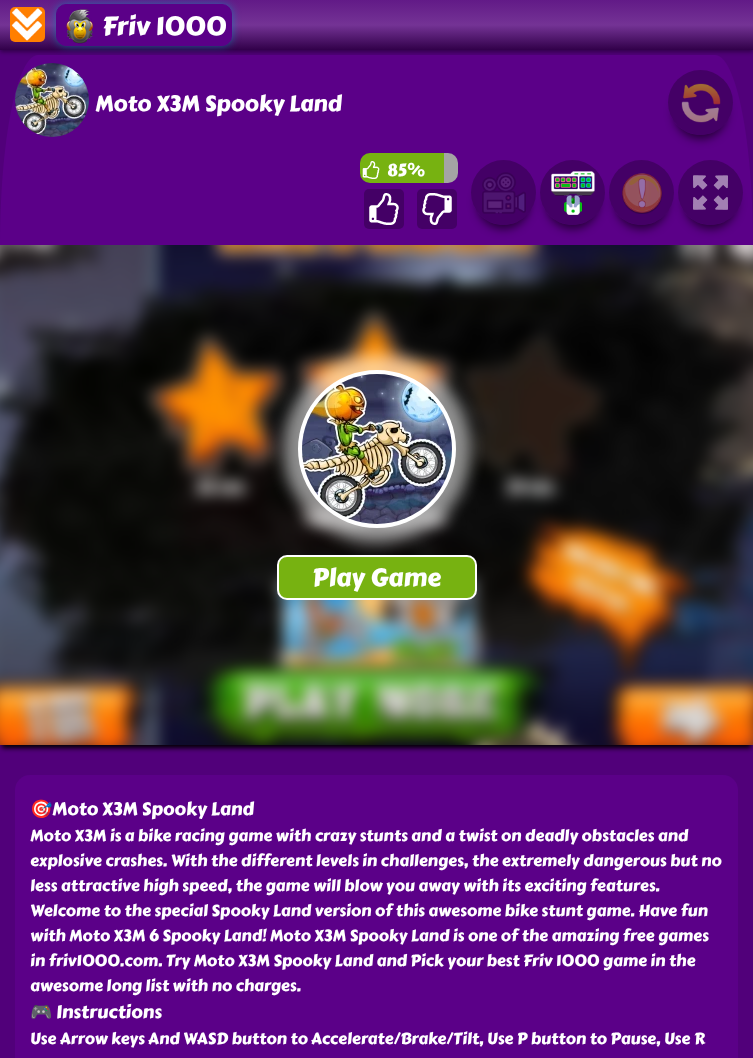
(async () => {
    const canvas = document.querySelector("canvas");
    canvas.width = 753;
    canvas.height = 1058;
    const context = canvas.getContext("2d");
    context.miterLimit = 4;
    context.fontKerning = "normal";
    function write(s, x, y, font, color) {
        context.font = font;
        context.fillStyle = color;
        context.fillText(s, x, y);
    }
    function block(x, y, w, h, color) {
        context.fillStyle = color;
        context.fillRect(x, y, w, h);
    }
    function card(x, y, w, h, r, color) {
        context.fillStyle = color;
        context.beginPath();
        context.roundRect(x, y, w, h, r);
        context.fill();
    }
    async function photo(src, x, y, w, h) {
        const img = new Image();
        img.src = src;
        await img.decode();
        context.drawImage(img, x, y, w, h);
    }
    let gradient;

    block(0, 0, 753, 1058, "rgb(81, 0, 122)");
    context.fillStyle = "rgba(0, 0, 0, 0.4)";
    context.filter = "blur(2px)";
    context.beginPath();
    context.rect(0, 2, 753, 50);
    context.fill();
    context.filter = "none";
    gradient = context.createLinearGradient(377, 0, 377, 50);
    gradient.addColorStop(0, "rgb(98, 26, 135)");
    gradient.addColorStop(0.5, "rgb(116, 51, 149)");
    gradient.addColorStop(1, "rgb(49, 0, 73)");
    context.fillStyle = gradient;
    context.fillRect(0, 0, 753, 50);
    await photo("media/1.png", 10, 7, 35, 35);
    context.fillStyle = "rgba(0, 146, 191, 0.6)";
    context.filter = "blur(4px)";
    context.beginPath();
    context.roundRect(56, 4, 176, 42, 10);
    context.fill();
    context.filter = "none";
    context.fillStyle = "rgb(91, 0, 136)";
    context.beginPath();
    context.roundRect(56.5, 4.5, 175, 41, 9.5);
    context.fill();
    context.strokeStyle = "rgb(91, 0, 136)";
    context.stroke();
    await photo("media/2.png", 66, 9, 27, 35);
    write("Friv 1000", 102, 35, "26px Carter One", "rgb(255, 255, 255)");
    context.fillStyle = "rgb(91, 0, 136)";
    context.beginPath();
    context.moveTo(38, 55);
    context.lineTo(715, 55);
    context.bezierCurveTo(736, 55, 753, 140, 753, 245);
    context.lineTo(0, 245);
    context.bezierCurveTo(0, 140, 17, 55, 38, 55);
    context.closePath();
    context.fill();
    await photo("media/3.png", 15, 63, 74, 74);
    write("Moto X3M Spooky Land", 95, 111, "22px Carter One", "rgb(255, 255, 255)");
    context.save();
    context.beginPath();
    context.moveTo(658, 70);
    context.lineTo(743, 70);
    context.lineTo(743, 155);
    context.lineTo(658, 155);
    context.closePath();
    context.moveTo(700.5, 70);
    context.bezierCurveTo(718.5, 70, 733, 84.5, 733, 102.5);
    context.bezierCurveTo(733, 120.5, 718.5, 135, 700.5, 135);
    context.bezierCurveTo(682.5, 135, 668, 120.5, 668, 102.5);
    context.bezierCurveTo(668, 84.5, 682.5, 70, 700.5, 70);
    context.closePath();
    context.clip("evenodd");
    context.fillStyle = "rgba(0, 0, 0, 0.6)";
    context.filter = "blur(5px)";
    context.beginPath();
    context.roundRect(674, 86, 53, 53, 26.5);
    context.fill();
    context.filter = "none";
    context.restore();
    context.fillStyle = "rgba(0, 0, 0, 0.25)";
    context.beginPath();
    context.arc(700.5, 102.5, 32.5, 0, Math.PI * 2);
    context.fill();
    await photo("media/4.png", 681, 83, 40, 40);
    context.fillStyle = "rgb(119, 178, 17)";
    context.beginPath();
    context.roundRect(360, 153, 84, 30, [10, 0, 0, 10]);
    context.fill();
    await photo("media/5.png", 362, 161, 18, 18);
    write("85%", 387, 176, "17px Carter One", "rgb(255, 255, 255)");
    context.fillStyle = "rgb(164, 164, 164)";
    context.beginPath();
    context.roundRect(444, 153, 14, 30, [0, 10, 10, 0]);
    context.fill();
    card(364, 189, 40, 40, 5, "rgb(68, 0, 102)");
    await photo("media/6.png", 369, 193, 30, 32);
    card(417, 189, 40, 40, 5, "rgb(68, 0, 102)");
    await photo("media/7.png", 422, 193, 30, 32);
    context.save();
    context.beginPath();
    context.moveTo(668, 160);
    context.lineTo(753, 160);
    context.lineTo(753, 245);
    context.lineTo(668, 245);
    context.closePath();
    context.moveTo(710.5, 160);
    context.bezierCurveTo(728.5, 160, 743, 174.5, 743, 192.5);
    context.bezierCurveTo(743, 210.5, 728.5, 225, 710.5, 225);
    context.bezierCurveTo(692.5, 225, 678, 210.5, 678, 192.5);
    context.bezierCurveTo(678, 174.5, 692.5, 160, 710.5, 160);
    context.closePath();
    context.clip("evenodd");
    context.fillStyle = "rgba(0, 0, 0, 0.6)";
    context.filter = "blur(5px)";
    context.beginPath();
    context.roundRect(684, 176, 53, 53, 26.5);
    context.fill();
    context.filter = "none";
    context.restore();
    context.fillStyle = "rgba(0, 0, 0, 0.25)";
    context.beginPath();
    context.arc(710.5, 192.5, 32.5, 0, Math.PI * 2);
    context.fill();
    context.save();
    context.beginPath();
    context.moveTo(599, 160);
    context.lineTo(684, 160);
    context.lineTo(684, 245);
    context.lineTo(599, 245);
    context.closePath();
    context.moveTo(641.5, 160);
    context.bezierCurveTo(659.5, 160, 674, 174.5, 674, 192.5);
    context.bezierCurveTo(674, 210.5, 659.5, 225, 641.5, 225);
    context.bezierCurveTo(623.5, 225, 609, 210.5, 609, 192.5);
    context.bezierCurveTo(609, 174.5, 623.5, 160, 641.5, 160);
    context.closePath();
    context.clip("evenodd");
    context.fillStyle = "rgba(0, 0, 0, 0.6)";
    context.filter = "blur(5px)";
    context.beginPath();
    context.roundRect(615, 176, 53, 53, 26.5);
    context.fill();
    context.filter = "none";
    context.restore();
    context.beginPath();
    context.arc(641.5, 192.5, 32.5, 0, Math.PI * 2);
    context.fill();
    context.save();
    context.beginPath();
    context.moveTo(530, 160);
    context.lineTo(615, 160);
    context.lineTo(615, 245);
    context.lineTo(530, 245);
    context.closePath();
    context.moveTo(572.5, 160);
    context.bezierCurveTo(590.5, 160, 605, 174.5, 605, 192.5);
    context.bezierCurveTo(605, 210.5, 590.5, 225, 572.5, 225);
    context.bezierCurveTo(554.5, 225, 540, 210.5, 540, 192.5);
    context.bezierCurveTo(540, 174.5, 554.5, 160, 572.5, 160);
    context.closePath();
    context.clip("evenodd");
    context.fillStyle = "rgba(0, 0, 0, 0.6)";
    context.filter = "blur(5px)";
    context.beginPath();
    context.roundRect(546, 176, 53, 53, 26.5);
    context.fill();
    context.filter = "none";
    context.restore();
    context.beginPath();
    context.arc(572.5, 192.5, 32.5, 0, Math.PI * 2);
    context.fill();
    context.save();
    context.beginPath();
    context.moveTo(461, 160);
    context.lineTo(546, 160);
    context.lineTo(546, 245);
    context.lineTo(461, 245);
    context.closePath();
    context.moveTo(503.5, 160);
    context.bezierCurveTo(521.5, 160, 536, 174.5, 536, 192.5);
    context.bezierCurveTo(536, 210.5, 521.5, 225, 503.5, 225);
    context.bezierCurveTo(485.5, 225, 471, 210.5, 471, 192.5);
    context.bezierCurveTo(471, 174.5, 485.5, 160, 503.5, 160);
    context.closePath();
    context.clip("evenodd");
    context.fillStyle = "rgba(0, 0, 0, 0.6)";
    context.filter = "blur(5px)";
    context.beginPath();
    context.roundRect(477, 176, 53, 53, 26.5);
    context.fill();
    context.filter = "none";
    context.restore();
    context.beginPath();
    context.arc(503.5, 192.5, 32.5, 0, Math.PI * 2);
    context.fill();
    await photo("media/8.png", 482, 172, 44, 42);
    await photo("media/9.png", 551, 171, 44, 44);
    await photo("media/10.png", 622, 173, 41, 41);
    await photo("media/11.png", 693, 175, 35, 35);
    context.fillStyle = "rgb(0, 0, 0)";
    context.filter = "blur(2.5px)";
    context.beginPath();
    context.rect(2, 252, 749, 496);
    context.fill();
    context.filter = "none";
    await photo("media/12.png", 0, 245, 753, 500);
    context.fillStyle = "rgba(255, 255, 255, 0.55)";
    context.filter = "blur(7.5px)";
    context.beginPath();
    context.roundRect(283, 355, 188, 188, 94);
    context.fill();
    context.filter = "none";
    context.fillStyle = "rgb(255, 255, 255)";
    context.beginPath();
    context.arc(377, 449, 77, 0, Math.PI * 2);
    context.fill();
    context.strokeStyle = "rgb(255, 255, 255)";
    context.lineWidth = 4;
    context.stroke();
    await photo("media/13.png", 302, 374, 150, 150);
    context.fillStyle = "rgb(119, 178, 17)";
    context.beginPath();
    context.roundRect(278, 556, 198, 43, 9);
    context.fill();
    context.lineWidth = 2;
    context.stroke();
    write("Play Game", 312, 586, "25px Carter One", "rgb(255, 255, 255)");
    card(15, 775, 723, 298, 15, "rgb(91, 0, 136)");
    write("🎯", 30, 815, "18px Noto Color Emoji", "rgb(255, 255, 255)");
    write("Moto X3M Spooky Land", 52, 815, "18px Carter One", "rgb(255, 255, 255)");
    write("Moto X3M is a bike racing game with crazy stunts and a twist on deadly obstacles and", 30, 841, "16px Carter One", "rgb(255, 255, 255)");
    write("explosive crashes. With the different levels in challenges, the extremely dangerous but no", 30, 866, "16px Carter One", "rgb(255, 255, 255)");
    write("less attractive high speed, the game will blow you away with its exciting features.", 30, 891, "16px Carter One", "rgb(255, 255, 255)");
    write("Welcome to the special Spooky Land version of this awesome bike stunt game. Have fun", 30, 916, "16px Carter One", "rgb(255, 255, 255)");
    write("with Moto X3M 6 Spooky Land! Moto X3M Spooky Land is one of the amazing free games", 30, 941, "16px Carter One", "rgb(255, 255, 255)");
    write("in friv1000.com. Try Moto X3M Spooky Land and Pick your best Friv 1000 game in the", 30, 966, "16px Carter One", "rgb(255, 255, 255)");
    write("awesome long list with no charges.", 30, 991, "16px Carter One", "rgb(255, 255, 255)");
    write("🎮", 30, 1018, "18px Noto Color Emoji", "rgb(255, 255, 255)");
    write("Instructions", 56, 1018, "18px Carter One", "rgb(255, 255, 255)");
    write("Use Arrow keys And WASD button to Accelerate/Brake/Tilt, Use P button to Pause, Use R", 30, 1044, "16px Carter One", "rgb(255, 255, 255)");
})();
